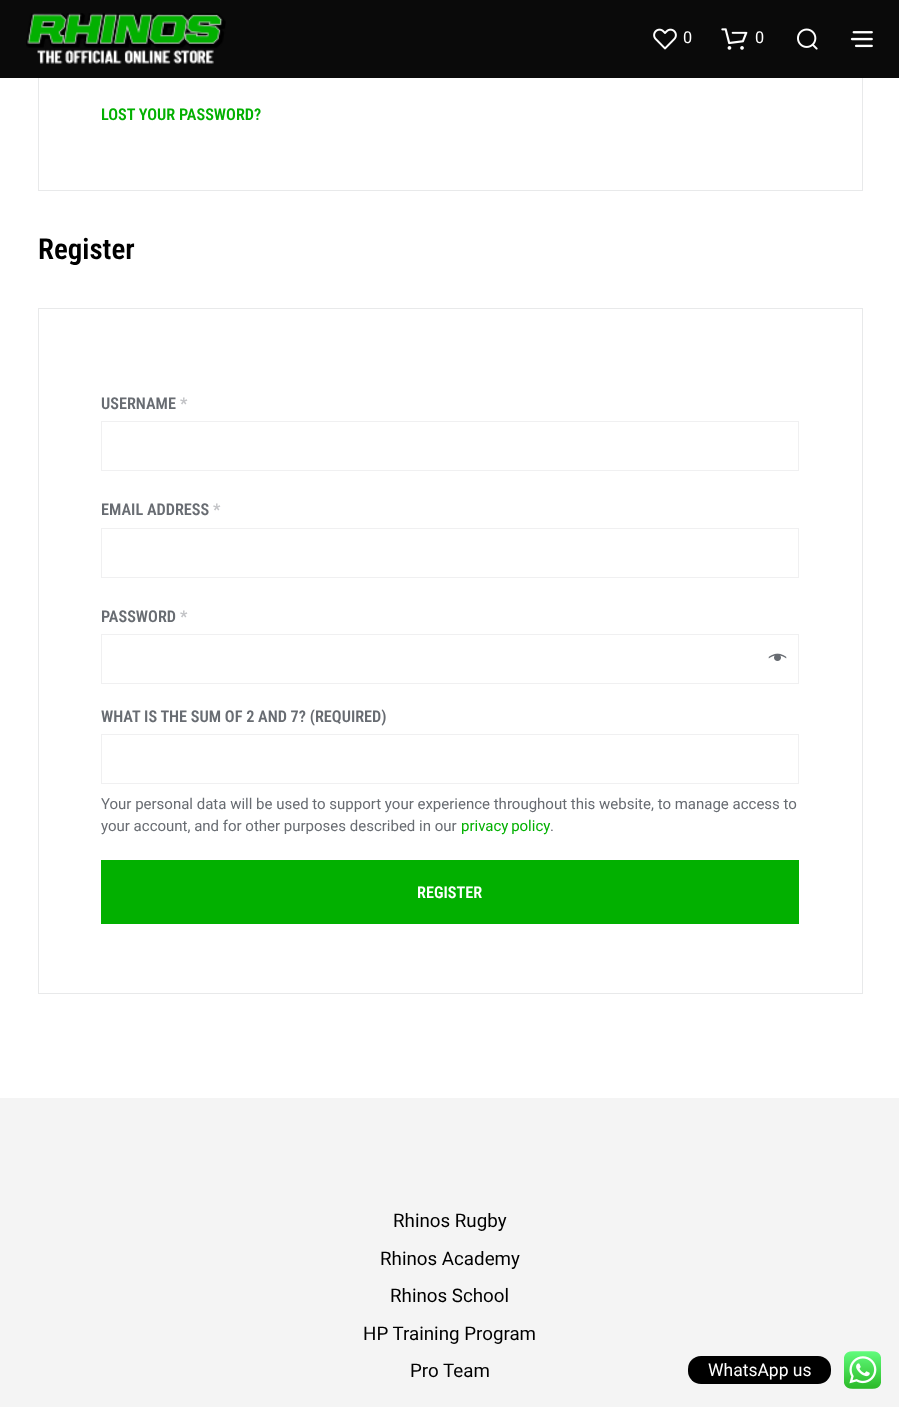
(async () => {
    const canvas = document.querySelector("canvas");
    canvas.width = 899;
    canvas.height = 1407;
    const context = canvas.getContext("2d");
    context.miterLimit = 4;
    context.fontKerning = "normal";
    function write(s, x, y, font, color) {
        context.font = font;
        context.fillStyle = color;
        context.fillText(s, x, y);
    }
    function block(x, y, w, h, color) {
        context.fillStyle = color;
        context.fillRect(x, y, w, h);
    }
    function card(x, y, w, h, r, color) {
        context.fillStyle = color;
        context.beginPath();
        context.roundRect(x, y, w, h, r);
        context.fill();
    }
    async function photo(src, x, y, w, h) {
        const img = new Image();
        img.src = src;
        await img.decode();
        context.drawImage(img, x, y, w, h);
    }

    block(0, 0, 899, 1407, "rgb(255, 255, 255)");
    context.strokeStyle = "rgb(232, 233, 234)";
    context.strokeRect(38.5, -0.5, 824, 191);
    block(0, 0, 899, 78, "rgb(10, 10, 10)");
    await photo("media/1.png", 26, 13, 200, 51);
    await photo("media/2.png", 653, 28, 24, 22);
    write("0", 683, 43, "16.25px Roboto", "rgb(255, 255, 255)");
    await photo("media/3.png", 721, 28, 27, 22);
    write("0", 755, 43, "16.25px Roboto", "rgb(255, 255, 255)");
    await photo("media/4.png", 797, 28, 21, 22);
    await photo("media/5.png", 850, 31, 23, 17);
    write("LOST YOUR PASSWORD?", 101, 120, "600 16.25px Roboto Condensed", "rgb(2, 176, 0)");
    write("Register", 38, 259, "600 29px Roboto Condensed", "rgb(0, 0, 0)");
    context.strokeRect(38.5, 308.5, 824, 685);
    write("USERNAME", 101, 409, "600 16.25px Roboto Condensed", "rgb(104, 108, 114)");
    write("*", 180, 409, "bold 16.25px Roboto Condensed", "rgb(195, 196, 199)");
    context.strokeStyle = "rgb(240, 240, 241)";
    context.strokeRect(101.5, 421.5, 697, 49);
    write("EMAIL ADDRESS", 101, 515, "600 16.25px Roboto Condensed", "rgb(104, 108, 114)");
    write("*", 213, 515, "bold 16.25px Roboto Condensed", "rgb(195, 196, 199)");
    context.strokeRect(101.5, 528.5, 697, 49);
    write("PASSWORD", 101, 622, "600 16.25px Roboto Condensed", "rgb(104, 108, 114)");
    write("*", 180, 622, "bold 16.25px Roboto Condensed", "rgb(195, 196, 199)");
    context.strokeRect(101.5, 634.5, 697, 49);
    await photo("media/6.png", 768, 653, 19, 8);
    write("WHAT IS THE SUM OF 2 AND 7? (REQUIRED)", 101, 722, "600 16.25px Roboto Condensed", "rgb(104, 108, 114)");
    context.strokeRect(101.5, 734.5, 697, 49);
    write("Your personal data will be used to support your experience throughout this website, to manage access to", 101, 809, "15px Roboto", "rgb(104, 108, 114)");
    write("your account, and for other purposes described in our", 101, 831, "15px Roboto", "rgb(104, 108, 114)");
    context.wordSpacing = "-1px";
    write("privacy policy", 461, 831, "15px Roboto", "rgb(2, 176, 0)");
    context.wordSpacing = "0px";
    write(".", 550, 831, "15px Roboto", "rgb(104, 108, 114)");
    block(101, 860, 698, 64, "rgb(2, 176, 0)");
    write("REGISTER", 417, 898, "600 16.25px Roboto Condensed", "rgb(255, 255, 255)");
    block(0, 1098, 899, 309, "rgb(244, 244, 244)");
    write("Rhinos Rugby", 393, 1227, "18.75px Roboto", "rgb(0, 0, 0)");
    write("Rhinos Academy", 380, 1265, "18.75px Roboto", "rgb(0, 0, 0)");
    write("Rhinos School", 390, 1302, "18.75px Roboto", "rgb(0, 0, 0)");
    write("HP Training Program", 363, 1340, "18.75px Roboto", "rgb(0, 0, 0)");
    write("Pro Team", 410, 1377, "18.75px Roboto", "rgb(0, 0, 0)");
    card(688, 1356, 143, 28, 13, "rgb(0, 0, 0)");
    write("WhatsApp us", 708, 1376, "17.5px Roboto", "rgb(255, 255, 255)");
    await photo("media/7.png", 844, 1351, 37, 38);
})();
